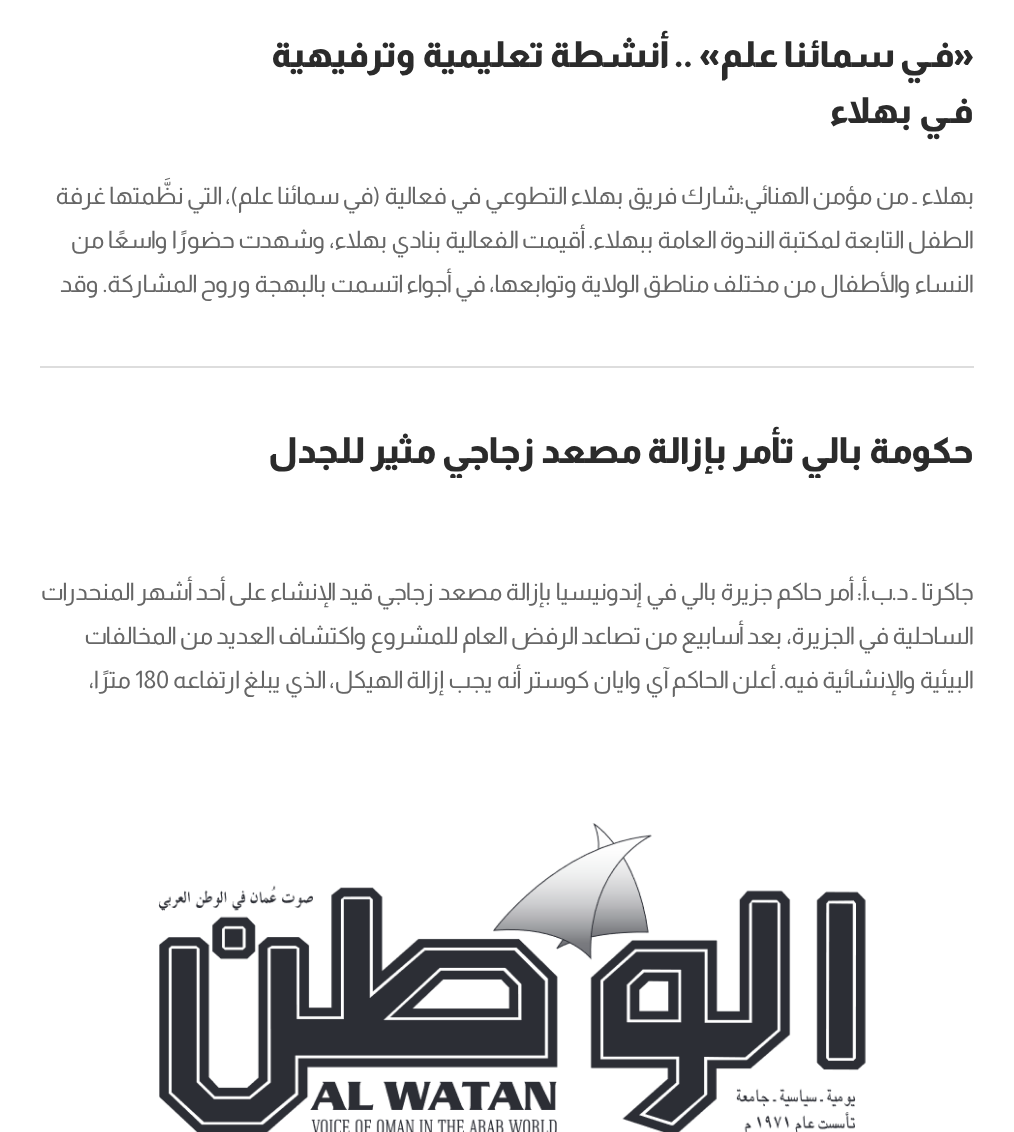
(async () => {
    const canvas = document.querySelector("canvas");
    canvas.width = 1014;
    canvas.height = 1132;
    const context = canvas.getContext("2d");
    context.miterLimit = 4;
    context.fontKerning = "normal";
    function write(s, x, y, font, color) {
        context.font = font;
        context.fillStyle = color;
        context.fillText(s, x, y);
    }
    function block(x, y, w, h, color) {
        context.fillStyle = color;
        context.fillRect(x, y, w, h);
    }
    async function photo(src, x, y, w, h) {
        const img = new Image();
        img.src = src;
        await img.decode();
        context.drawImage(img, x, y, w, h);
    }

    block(0, 0, 1014, 1132, "rgb(255, 255, 255)");
    block(40, 366, 934, 2, "rgb(221, 221, 221)");
    context.direction = "rtl";
    write("«فـي سمائنا علم» .. أنشطة تعليمية وترفيهية", 974, 67, "800 36px Almarai", "rgb(43, 43, 43)");
    write("فـي بهلاء", 974, 123, "800 36px Almarai", "rgb(43, 43, 43)");
    write("بهلاء ـ من مؤمن الهنائي:شارك فريق بهلاء التطوعي في فعالية (في سمائنا علم)، التي نظَّمتها غرفة", 974, 204, "24px Almarai", "rgb(102, 102, 102)");
    write("الطفل التابعة لمكتبة الندوة العامة ببهلاء. أقيمت الفعالية بنادي بهلاء، وشهدت حضورًا واسعًا من", 974, 248, "24px Almarai", "rgb(102, 102, 102)");
    write("النساء والأطفال من مختلف مناطق الولاية وتوابعها، في أجواء اتسمت بالبهجة وروح المشاركة. وقد", 974, 292, "24px Almarai", "rgb(102, 102, 102)");
    context.save();
    context.beginPath();
    context.rect(226, 422, 748, 56);
    context.clip();
    write("حكومة بالي تأمر بإزالة مصعد زجاجي مثير للجدل", 974, 463, "800 36px Almarai", "rgb(43, 43, 43)");
    context.restore();
    write("جاكرتا ـ د.ب.أ: أمر حاكم جزيرة بالي في إندونيسيا بإزالة مصعد زجاجي قيد الإنشاء على أحد أشهر المنحدرات", 974, 600, "24px Almarai", "rgb(102, 102, 102)");
    write("الساحلية في الجزيرة، بعد أسابيع من تصاعد الرفض العام للمشروع واكتشاف العديد من المخالفات", 974, 644, "24px Almarai", "rgb(102, 102, 102)");
    write("البيئية والإنشائية فيه. أعلن الحاكم آي وايان كوستر أنه يجب إزالة الهيكل، الذي يبلغ ارتفاعه", 974, 688, "24px Almarai", "rgb(102, 102, 102)");
    context.direction = "ltr";
    write("180", 135, 688, "24px Almarai", "rgb(102, 102, 102)");
    context.direction = "rtl";
    write("مترًا،", 131, 688, "24px Almarai", "rgb(102, 102, 102)");
    await photo("media/1.png", 158, 823, 708, 309);
})();
